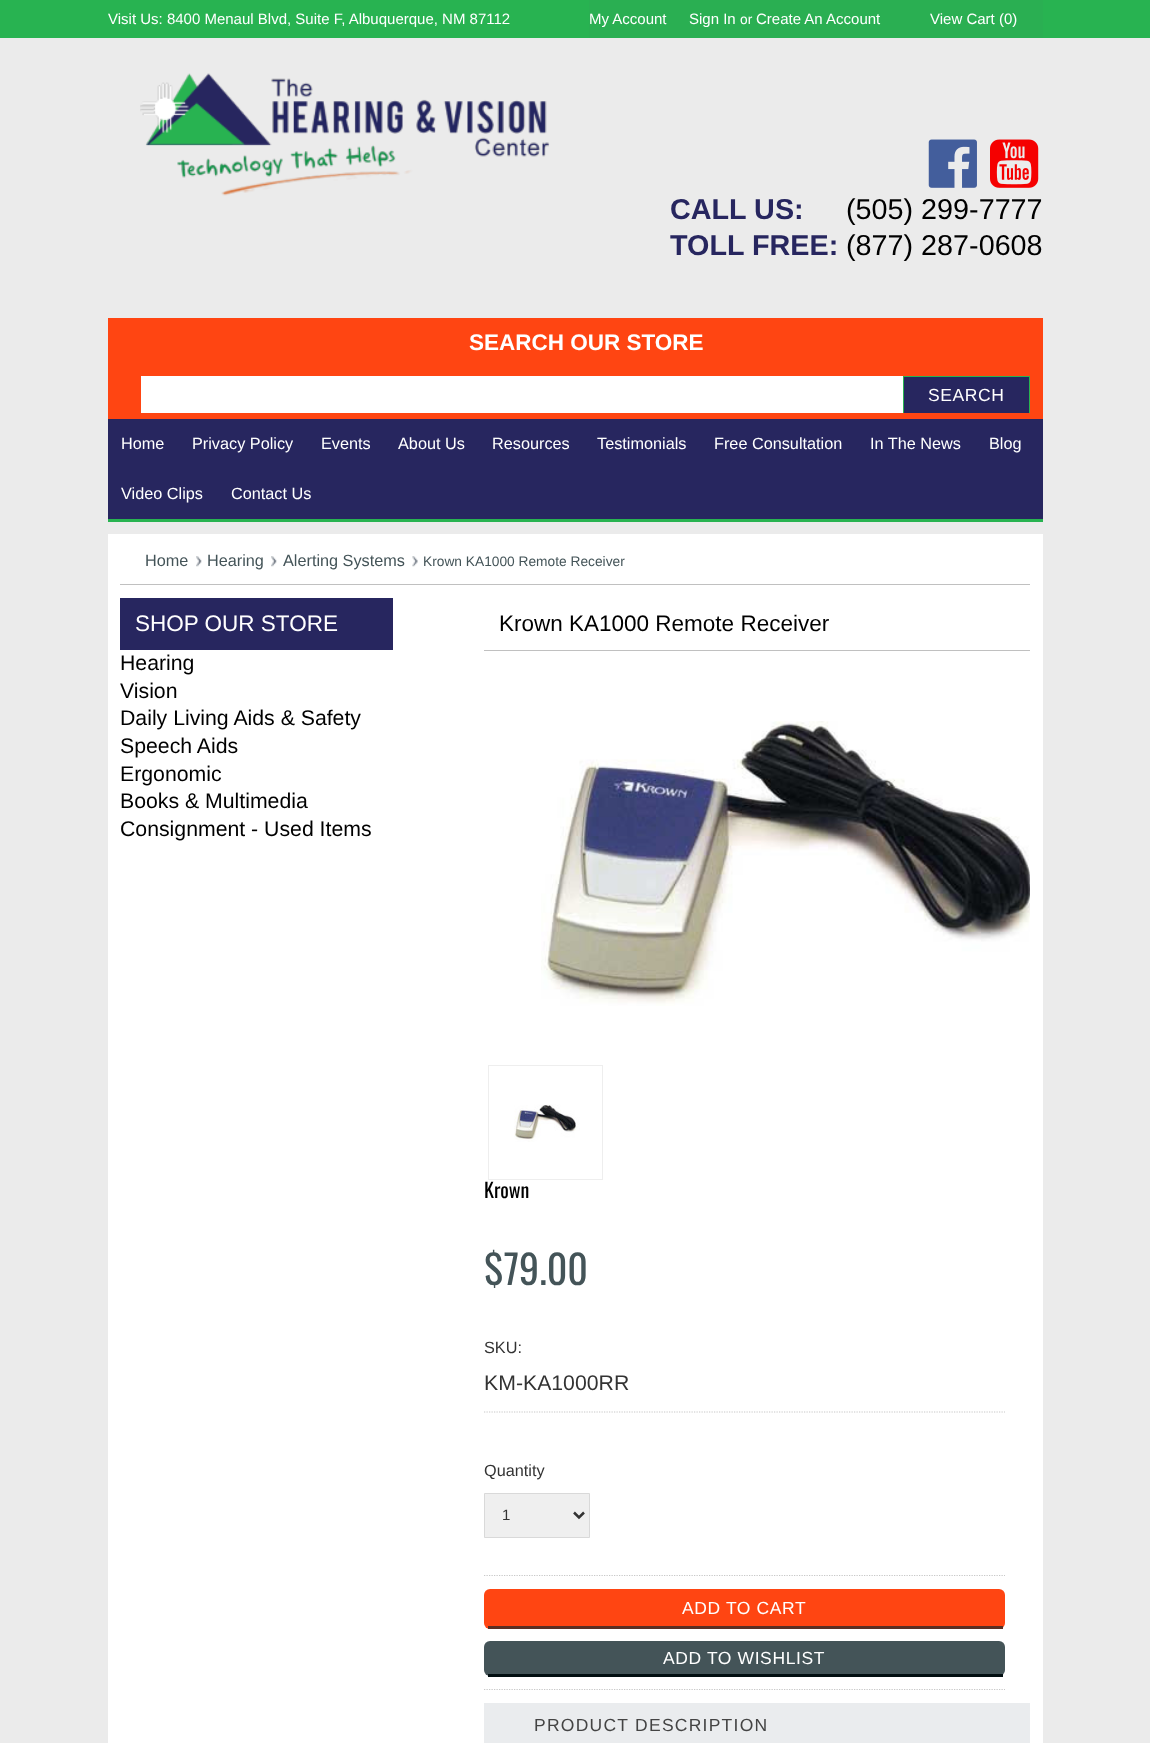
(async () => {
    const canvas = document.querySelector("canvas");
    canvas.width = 1150;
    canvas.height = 1743;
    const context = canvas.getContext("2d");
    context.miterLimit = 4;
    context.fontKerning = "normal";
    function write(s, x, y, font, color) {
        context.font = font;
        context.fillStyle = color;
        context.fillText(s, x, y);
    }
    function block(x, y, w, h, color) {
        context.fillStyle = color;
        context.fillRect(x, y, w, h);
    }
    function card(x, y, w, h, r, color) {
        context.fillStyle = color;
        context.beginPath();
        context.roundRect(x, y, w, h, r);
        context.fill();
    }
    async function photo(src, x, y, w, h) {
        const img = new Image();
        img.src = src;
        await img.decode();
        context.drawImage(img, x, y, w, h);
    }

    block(0, 0, 1150, 1743, "rgb(235, 235, 235)");
    block(0, 0, 1150, 38, "rgb(40, 179, 81)");
    write("Visit Us: 8400 Menaul Blvd, Suite F, Albuquerque, NM 87112", 108, 24, "15px Liberation Sans", "rgb(255, 255, 255)");
    block(589, 0, 454, 38, "rgb(42, 175, 82)");
    write("My Account", 589, 24, "15px Liberation Sans", "rgb(255, 255, 255)");
    write("Sign In", 689, 24, "15px Liberation Sans", "rgb(255, 255, 255)");
    write("or", 740, 24, "13.75px Liberation Sans", "rgb(255, 255, 255)");
    write("Create An Account", 756, 24, "15px Liberation Sans", "rgb(255, 255, 255)");
    write("View Cart (0)", 930, 24, "15px Liberation Sans", "rgb(255, 255, 255)");
    await photo("media/1.png", 140, 73, 410, 123);
    await photo("media/2.png", 928, 139, 49, 49);
    await photo("media/3.png", 990, 139, 49, 49);
    write("CALL US:", 670, 219, "bold 28.75px Liberation Sans", "rgb(39, 38, 95)");
    write("(505) 299-7777", 846, 219, "28.75px Liberation Sans", "rgb(0, 0, 0)");
    write("TOLL FREE:", 670, 255, "bold 28.75px Liberation Sans", "rgb(39, 38, 95)");
    write("(877) 287-0608", 846, 255, "28.75px Liberation Sans", "rgb(0, 0, 0)");
    block(108, 318, 935, 101, "rgb(255, 69, 18)");
    write("SEARCH OUR STORE", 469, 350, "bold 22.5px Liberation Sans", "rgb(255, 255, 255)");
    block(141, 376, 762, 37, "rgb(255, 255, 255)");
    block(904, 377, 125, 36, "rgb(39, 38, 95)");
    block(108, 419, 935, 100, "rgb(39, 38, 95)");
    context.save();
    context.beginPath();
    context.rect(141, 376, 889, 37);
    context.clip();
    context.strokeStyle = "rgb(40, 179, 81)";
    context.strokeRect(903.5, 376.5, 126, 47);
    context.restore();
    context.letterSpacing = "0.6px";
    write("SEARCH", 928, 401, "17.5px Liberation Sans", "rgb(255, 255, 255)");
    block(108, 519, 935, 3, "rgb(40, 179, 81)");
    context.letterSpacing = "0px";
    write("Home", 121, 449, "16.25px Liberation Sans", "rgb(255, 255, 255)");
    write("Privacy Policy", 192, 449, "16.25px Liberation Sans", "rgb(255, 255, 255)");
    write("Events", 321, 449, "16.25px Liberation Sans", "rgb(255, 255, 255)");
    write("About Us", 398, 449, "16.25px Liberation Sans", "rgb(255, 255, 255)");
    write("Resources", 492, 449, "16.25px Liberation Sans", "rgb(255, 255, 255)");
    write("Testimonials", 597, 449, "16.25px Liberation Sans", "rgb(255, 255, 255)");
    write("Free Consultation", 714, 449, "16.25px Liberation Sans", "rgb(255, 255, 255)");
    write("In The News", 870, 449, "16.25px Liberation Sans", "rgb(255, 255, 255)");
    write("Blog", 989, 449, "16.25px Liberation Sans", "rgb(255, 255, 255)");
    write("Video Clips", 121, 499, "16.25px Liberation Sans", "rgb(255, 255, 255)");
    write("Contact Us", 231, 499, "16.25px Liberation Sans", "rgb(255, 255, 255)");
    block(108, 534, 935, 1209, "rgb(255, 255, 255)");
    block(120, 584, 910, 1, "rgb(192, 192, 192)");
    await photo("media/4.png", 196, 556, 6, 11);
    write("Home", 145, 566, "16.25px Liberation Sans", "rgb(68, 84, 88)");
    await photo("media/4.png", 271, 556, 6, 11);
    write("Hearing", 207, 566, "16.25px Liberation Sans", "rgb(68, 84, 88)");
    await photo("media/5.png", 412, 556, 6, 11);
    write("Alerting Systems", 283, 566, "16.25px Liberation Sans", "rgb(68, 84, 88)");
    write("Krown KA1000 Remote Receiver", 423, 566, "13.75px Liberation Sans", "rgb(68, 84, 88)");
    block(120, 598, 273, 52, "rgb(39, 38, 95)");
    write("SHOP OUR STORE", 135, 631, "22.5px Liberation Sans", "rgb(255, 255, 255)");
    write("Hearing", 120, 670, "21.25px Liberation Sans", "rgb(0, 0, 0)");
    write("Vision", 120, 698, "21.25px Liberation Sans", "rgb(0, 0, 0)");
    write("Daily Living Aids & Safety", 120, 725, "21.25px Liberation Sans", "rgb(0, 0, 0)");
    write("Speech Aids", 120, 753, "21.25px Liberation Sans", "rgb(0, 0, 0)");
    write("Ergonomic", 120, 781, "21.25px Liberation Sans", "rgb(0, 0, 0)");
    write("Books & Multimedia", 120, 808, "21.25px Liberation Sans", "rgb(0, 0, 0)");
    write("Consignment - Used Items", 120, 836, "21.25px Liberation Sans", "rgb(0, 0, 0)");
    block(484, 650, 546, 1, "rgb(192, 192, 192)");
    write("Krown KA1000 Remote Receiver", 499, 631, "22.5px Liberation Sans", "rgb(0, 0, 0)");
    await photo("media/6.png", 541, 721, 489, 285);
    context.strokeStyle = "rgb(238, 238, 238)";
    context.strokeRect(488.5, 1065.5, 114, 114);
    await photo("media/7.png", 514, 1104, 66, 38);
    write("Krown", 484, 1198, "20px Oswald", "rgb(0, 0, 0)");
    write("$79.00", 484, 1285, "40px Oswald", "rgb(68, 84, 88)");
    context.beginPath();
    context.moveTo(484, 1412);
    context.lineTo(1005, 1412);
    context.strokeStyle = "rgb(200, 200, 200)";
    context.lineWidth = 1.2;
    context.setLineDash([1.25, 1.25]);
    context.stroke();
    write("SKU:", 484, 1353, "16.25px Liberation Sans", "rgb(51, 51, 51)");
    write("KM-KA1000RR", 484, 1390, "21.25px Liberation Sans", "rgb(51, 51, 51)");
    context.beginPath();
    context.moveTo(484, 1689.5);
    context.lineTo(1005, 1689.5);
    context.stroke();
    context.beginPath();
    context.moveTo(484, 1575.5);
    context.lineTo(1005, 1575.5);
    context.stroke();
    write("Quantity", 484, 1476, "16.25px Liberation Sans", "rgb(51, 51, 51)");
    context.fillStyle = "rgb(239, 239, 239)";
    context.beginPath();
    context.rect(484.5, 1493.5, 105, 44);
    context.fill();
    context.strokeStyle = "rgb(217, 217, 217)";
    context.lineWidth = 1;
    context.setLineDash([]);
    context.stroke();
    context.beginPath();
    context.moveTo(574, 1512.5);
    context.lineTo(579, 1517.5);
    context.lineTo(584, 1512.5);
    context.strokeStyle = "rgb(51, 51, 51)";
    context.lineWidth = 2.5;
    context.stroke();
    write("1", 502, 1520, "15px Liberation Sans", "rgb(51, 51, 51)");
    card(484, 1589, 521, 40, 6, "rgb(255, 69, 18)");
    block(488, 1626, 515, 3, "rgb(91, 47, 35)");
    context.letterSpacing = "0.6px";
    write("ADD TO CART", 682, 1614, "17.5px Liberation Sans", "rgb(255, 255, 255)");
    card(484, 1641, 521, 35, 6, "rgb(68, 84, 88)");
    block(488, 1674, 515, 3, "rgb(2, 14, 17)");
    write("ADD TO WISHLIST", 663, 1664, "17.5px Liberation Sans", "rgb(255, 255, 255)");
    block(484, 1703, 546, 40, "rgb(234, 236, 238)");
    context.letterSpacing = "1.25px";
    write("PRODUCT DESCRIPTION", 534, 1731, "17.5px Liberation Sans", "rgb(68, 68, 68)");
})();
